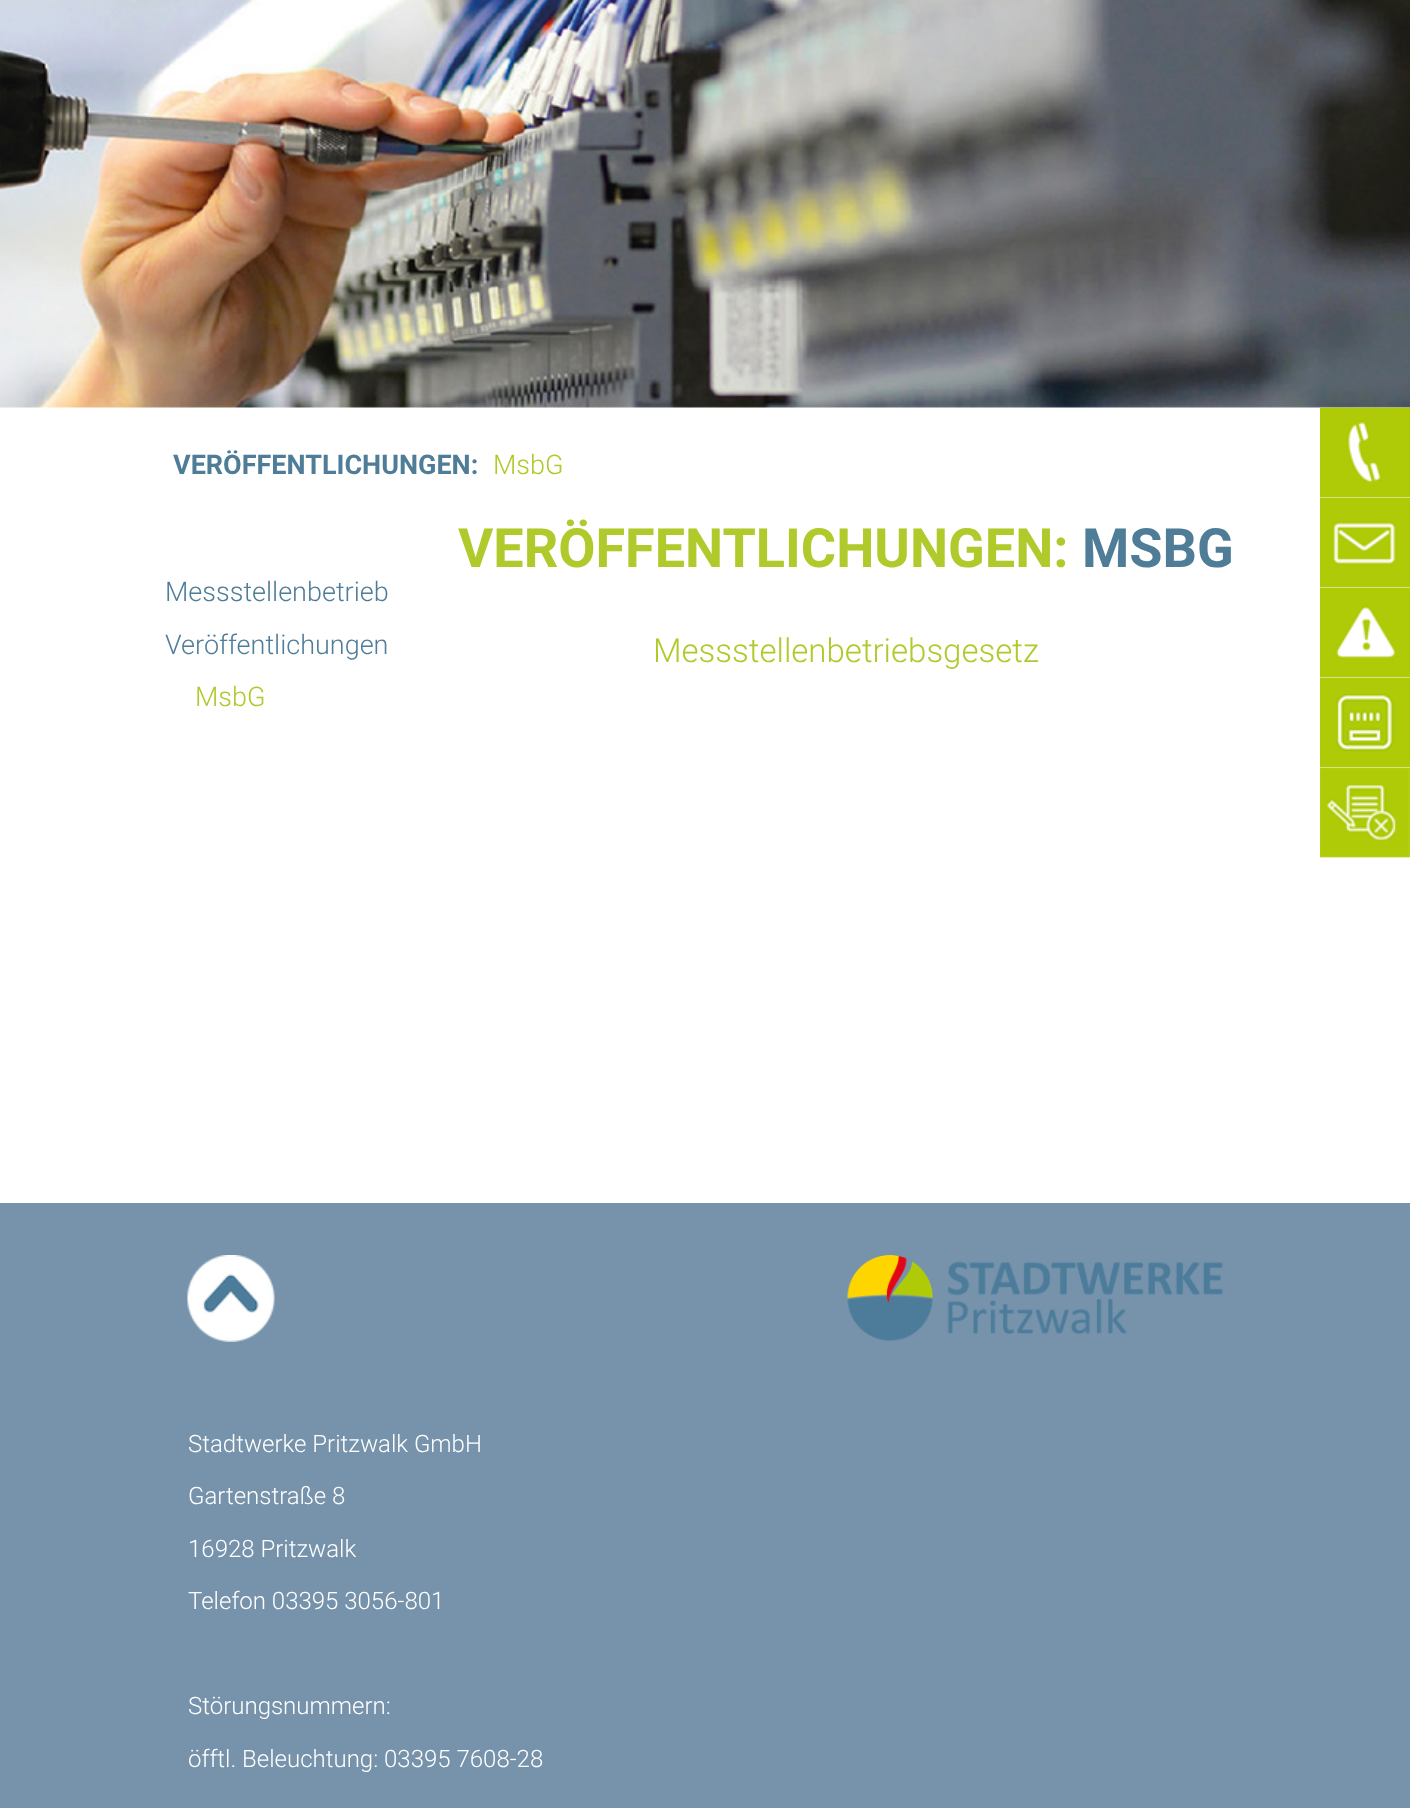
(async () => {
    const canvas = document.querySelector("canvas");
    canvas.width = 1410;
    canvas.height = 1808;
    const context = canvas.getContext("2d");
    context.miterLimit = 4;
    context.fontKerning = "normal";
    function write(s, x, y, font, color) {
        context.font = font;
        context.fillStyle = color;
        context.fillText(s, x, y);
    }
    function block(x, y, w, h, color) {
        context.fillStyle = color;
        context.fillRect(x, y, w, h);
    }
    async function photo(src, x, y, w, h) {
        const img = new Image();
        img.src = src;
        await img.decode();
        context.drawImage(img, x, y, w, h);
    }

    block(0, 0, 1410, 1808, "rgb(255, 255, 255)");
    await photo("media/1.png", 0, 0, 1410, 408);
    block(1320, 497, 90, 1, "rgb(247, 250, 237)");
    await photo("media/2.png", 1320, 407, 90, 91);
    block(1320, 587, 90, 1, "rgb(247, 250, 237)");
    await photo("media/3.png", 1320, 497, 90, 91);
    block(1320, 677, 90, 1, "rgb(247, 250, 237)");
    await photo("media/4.png", 1320, 587, 90, 91);
    block(1320, 767, 90, 91, "rgb(247, 250, 237)");
    await photo("media/5.png", 1320, 677, 90, 91);
    await photo("media/6.png", 1320, 767, 90, 91);
    write("VERÖFFENTLICHUNGEN:", 173, 474, "bold 27px Roboto", "rgb(79, 125, 152)");
    write("MsbG", 493, 474, "300 27px Roboto", "rgb(176, 201, 43)");
    write("Messstellenbetrieb", 165, 601, "300 27px Roboto", "rgb(79, 125, 152)");
    write("Veröffentlichungen", 165, 654, "300 27px Roboto", "rgb(79, 125, 152)");
    write("MsbG", 195, 706, "300 27px Roboto", "rgb(176, 201, 43)");
    write("VERÖFFENTLICHUNGEN:", 458, 567, "bold 54px Roboto", "rgb(176, 201, 43)");
    write("MSBG", 1082, 567, "bold 54px Roboto", "rgb(79, 125, 152)");
    write("Messstellenbetriebsgesetz", 653, 662, "300 33px Roboto", "rgb(176, 201, 43)");
    block(0, 1203, 1410, 605, "rgb(118, 147, 171)");
    await photo("media/7.png", 187, 1255, 88, 87);
    await photo("media/8.png", 847, 1255, 376, 86);
    write("Stadtwerke Pritzwalk GmbH", 188, 1452, "300 24px Roboto", "rgb(255, 255, 255)");
    write("Gartenstraße 8", 188, 1504, "300 24px Roboto", "rgb(255, 255, 255)");
    write("16928 Pritzwalk", 188, 1557, "300 24px Roboto", "rgb(255, 255, 255)");
    write("Telefon 03395 3056-801", 188, 1609, "300 24px Roboto", "rgb(255, 255, 255)");
    write("Störungsnummern:", 188, 1714, "300 24px Roboto", "rgb(255, 255, 255)");
    write("öfftl. Beleuchtung: 03395 7608-28", 188, 1767, "300 24px Roboto", "rgb(255, 255, 255)");
})();
